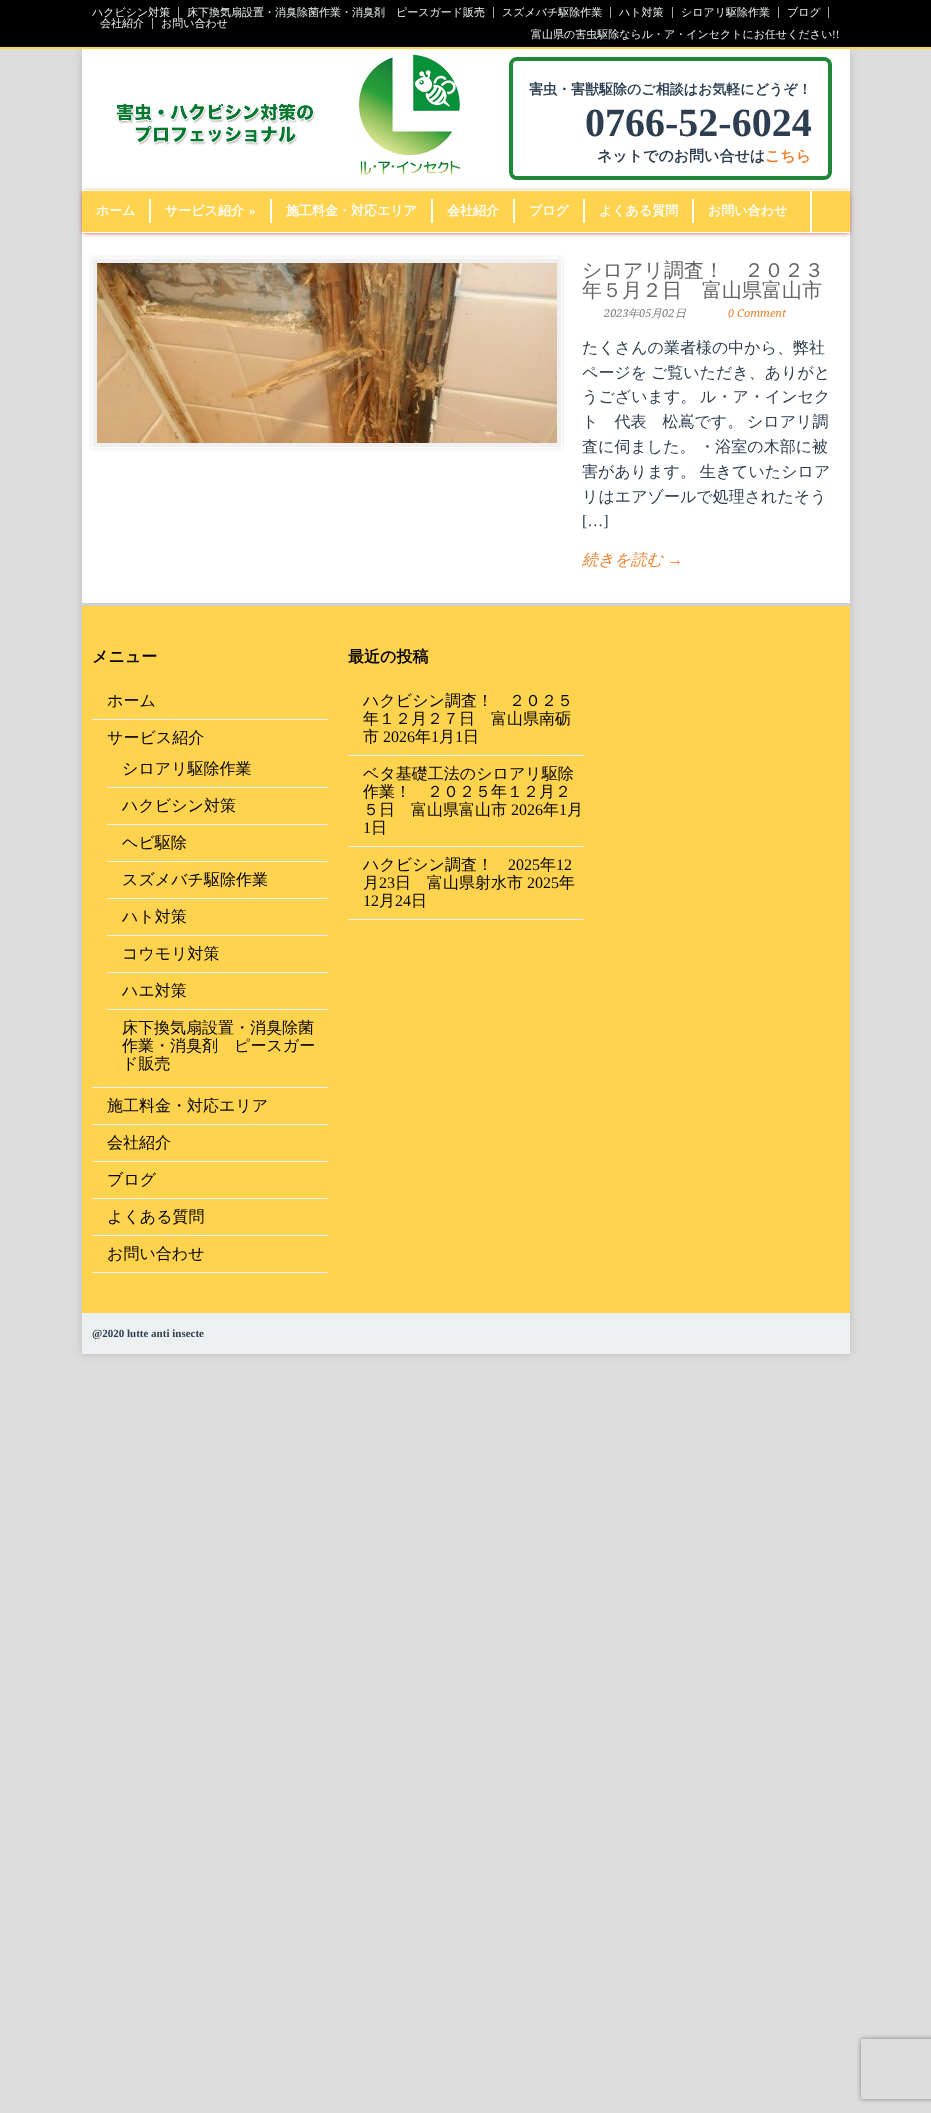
(async () => {
    const canvas = document.querySelector("canvas");
    canvas.width = 931;
    canvas.height = 2113;
    const context = canvas.getContext("2d");
    context.miterLimit = 4;
    context.fontKerning = "normal";
    function write(s, x, y, font, color) {
        context.font = font;
        context.fillStyle = color;
        context.fillText(s, x, y);
    }
    function block(x, y, w, h, color) {
        context.fillStyle = color;
        context.fillRect(x, y, w, h);
    }
    async function photo(src, x, y, w, h) {
        const img = new Image();
        img.src = src;
        await img.decode();
        context.drawImage(img, x, y, w, h);
    }

    block(0, 0, 931, 2113, "rgb(221, 221, 221)");
    context.fillStyle = "rgb(187, 187, 187)";
    context.filter = "blur(4px)";
    context.beginPath();
    context.rect(82, 49, 768, 1305);
    context.fill();
    context.filter = "none";
    block(0, 0, 931, 47, "rgb(0, 0, 0)");
    block(178, 7, 1, 11, "rgb(165, 168, 169)");
    write("ハクビシン対策", 92, 16, "500 11px WenQuanYi Zen Hei", "rgb(236, 240, 241)");
    block(493, 7, 1, 11, "rgb(165, 168, 169)");
    write("床下換気扇設置・消臭除菌作業・消臭剤　ピースガード販売", 187, 16, "500 11px WenQuanYi Zen Hei", "rgb(236, 240, 241)");
    block(610, 7, 1, 11, "rgb(165, 168, 169)");
    write("スズメバチ駆除作業", 502, 16, "500 11px WenQuanYi Zen Hei", "rgb(236, 240, 241)");
    block(672, 7, 1, 11, "rgb(165, 168, 169)");
    write("ハト対策", 619, 16, "500 11px WenQuanYi Zen Hei", "rgb(236, 240, 241)");
    block(778, 7, 1, 11, "rgb(165, 168, 169)");
    write("シロアリ駆除作業", 681, 16, "500 11px WenQuanYi Zen Hei", "rgb(236, 240, 241)");
    block(828, 7, 1, 11, "rgb(165, 168, 169)");
    write("ブログ", 787, 16, "500 11px WenQuanYi Zen Hei", "rgb(236, 240, 241)");
    block(152, 18, 1, 11, "rgb(165, 168, 169)");
    write("会社紹介", 100, 27, "500 11px WenQuanYi Zen Hei", "rgb(236, 240, 241)");
    write("お問い合わせ", 161, 27, "500 11px WenQuanYi Zen Hei", "rgb(236, 240, 241)");
    write("富山県の害虫駆除ならル・ア・インセクトにお任せください", 531, 38, "500 11px WenQuanYi Zen Hei", "rgb(236, 240, 241)");
    write("!!", 832, 38, "11px Liberation Serif", "rgb(236, 240, 241)");
    block(0, 47, 931, 2, "rgb(255, 211, 78)");
    block(82, 49, 768, 554, "rgb(255, 255, 255)");
    await photo("media/1.png", 116, 54, 345, 121);
    context.beginPath();
    context.roundRect(511, 59, 319, 119, 6);
    context.strokeStyle = "rgb(31, 137, 57)";
    context.lineWidth = 4;
    context.stroke();
    write("害虫・害獣駆除のご相談はお気軽にどうぞ！", 529, 94, "bold 14px WenQuanYi Zen Hei", "rgb(44, 62, 80)");
    write("0766-52-6024", 585, 136, "bold 40px Liberation Serif", "rgb(44, 62, 80)");
    write("ネットでのお問い合せは", 597, 161, "bold 15px WenQuanYi Zen Hei", "rgb(44, 62, 80)");
    write("こちら", 765, 161, "bold 15px WenQuanYi Zen Hei", "rgb(239, 127, 44)");
    context.fillStyle = "rgb(189, 73, 50)";
    context.filter = "blur(2.5px)";
    context.beginPath();
    context.rect(83, 192, 766, 41);
    context.fill();
    context.filter = "none";
    block(82, 191, 768, 41, "rgb(255, 211, 78)");
    block(82, 190, 768, 1, "rgb(253, 253, 253)");
    block(82, 232, 768, 1, "rgb(253, 253, 253)");
    block(149, 199, 2, 24, "rgb(255, 255, 255)");
    write("ホーム", 96, 215, "bold 13px WenQuanYi Zen Hei", "rgb(253, 253, 253)");
    block(270, 199, 2, 24, "rgb(255, 255, 255)");
    write("サービス紹介", 165, 215, "bold 13px WenQuanYi Zen Hei", "rgb(253, 253, 253)");
    write("»", 249, 215, "bold 13px Liberation Serif", "rgb(253, 253, 253)");
    block(431, 199, 2, 24, "rgb(255, 255, 255)");
    write("施工料金・対応エリア", 286, 215, "bold 13px WenQuanYi Zen Hei", "rgb(253, 253, 253)");
    block(513, 199, 2, 24, "rgb(255, 255, 255)");
    write("会社紹介", 447, 215, "bold 13px WenQuanYi Zen Hei", "rgb(253, 253, 253)");
    block(583, 199, 2, 24, "rgb(255, 255, 255)");
    write("ブログ", 529, 215, "bold 13px WenQuanYi Zen Hei", "rgb(253, 253, 253)");
    block(692, 199, 2, 24, "rgb(255, 255, 255)");
    write("よくある質問", 599, 215, "bold 13px WenQuanYi Zen Hei", "rgb(253, 253, 253)");
    write("お問い合わせ", 708, 215, "bold 13px WenQuanYi Zen Hei", "rgb(253, 253, 253)");
    block(810, 191, 2, 41, "rgb(255, 255, 255)");
    context.fillStyle = "rgb(236, 236, 236)";
    context.filter = "blur(2px)";
    context.beginPath();
    context.rect(91, 257, 472, 192);
    context.fill();
    context.filter = "none";
    block(94, 260, 466, 186, "rgb(240, 240, 240)");
    context.strokeStyle = "rgb(255, 255, 255)";
    context.lineWidth = 1;
    context.strokeRect(92.5, 258.5, 469, 189);
    await photo("media/2.png", 97, 263, 460, 180);
    write("シロアリ調査！　２０２３", 582, 277, "500 20px WenQuanYi Zen Hei", "rgb(100, 100, 100)");
    write("年５月２日　富山県富山市", 582, 297, "500 20px WenQuanYi Zen Hei", "rgb(100, 100, 100)");
    write("2023", 604, 317, "italic 11px Droid Serif", "rgb(121, 121, 121)");
    write("年", 628, 317, "italic 500 11px WenQuanYi Zen Hei", "rgb(121, 121, 121)");
    write("05", 639, 317, "italic 11px Droid Serif", "rgb(121, 121, 121)");
    write("月", 651, 317, "italic 500 11px WenQuanYi Zen Hei", "rgb(121, 121, 121)");
    write("02", 662, 317, "italic 11px Droid Serif", "rgb(121, 121, 121)");
    write("日", 675, 317, "italic 500 11px WenQuanYi Zen Hei", "rgb(121, 121, 121)");
    write("0 Comment", 728, 317, "italic 11px Droid Serif", "rgb(239, 127, 44)");
    write("たくさんの業者様の中から、弊社", 582, 353, "500 16px WenQuanYi Zen Hei", "rgb(44, 62, 80)");
    context.wordSpacing = "-1px";
    write("ページを ご覧いただき、ありがと", 582, 378, "500 16px WenQuanYi Zen Hei", "rgb(44, 62, 80)");
    write("うございます。 ル・ア・インセク", 582, 402, "500 16px WenQuanYi Zen Hei", "rgb(44, 62, 80)");
    write("ト　代表　松嶌です。 シロアリ調", 582, 427, "500 16px WenQuanYi Zen Hei", "rgb(44, 62, 80)");
    write("査に伺ました。 ・浴室の木部に被", 582, 452, "500 16px WenQuanYi Zen Hei", "rgb(44, 62, 80)");
    write("害があります。 生きていたシロア", 582, 477, "500 16px WenQuanYi Zen Hei", "rgb(44, 62, 80)");
    context.wordSpacing = "0px";
    write("リはエアゾールで処理されたそう", 582, 502, "500 16px WenQuanYi Zen Hei", "rgb(44, 62, 80)");
    write("[…]", 582, 526, "16px Liberation Serif", "rgb(44, 62, 80)");
    write("続きを読む", 582, 565, "italic 500 16px WenQuanYi Zen Hei", "rgb(239, 127, 44)");
    write("→", 667, 565, "italic 16px Liberation Serif", "rgb(239, 127, 44)");
    block(82, 606, 768, 707, "rgb(255, 211, 78)");
    block(82, 603, 768, 3, "rgb(207, 207, 207)");
    write("メニュー", 92, 662, "bold 16px WenQuanYi Zen Hei", "rgb(0, 0, 0)");
    block(92, 719, 236, 1, "rgb(236, 240, 241)");
    write("ホーム", 107, 706, "500 16px WenQuanYi Zen Hei", "rgb(0, 0, 0)");
    block(92, 1087, 236, 1, "rgb(236, 240, 241)");
    write("サービス紹介", 107, 743, "500 16px WenQuanYi Zen Hei", "rgb(0, 0, 0)");
    block(107, 787, 221, 1, "rgb(236, 240, 241)");
    write("シロアリ駆除作業", 122, 774, "500 16px WenQuanYi Zen Hei", "rgb(0, 0, 0)");
    block(107, 824, 221, 1, "rgb(236, 240, 241)");
    write("ハクビシン対策", 122, 811, "500 16px WenQuanYi Zen Hei", "rgb(0, 0, 0)");
    block(107, 861, 221, 1, "rgb(236, 240, 241)");
    write("ヘビ駆除", 122, 848, "500 16px WenQuanYi Zen Hei", "rgb(0, 0, 0)");
    block(107, 898, 221, 1, "rgb(236, 240, 241)");
    write("スズメバチ駆除作業", 122, 885, "500 16px WenQuanYi Zen Hei", "rgb(0, 0, 0)");
    block(107, 935, 221, 1, "rgb(236, 240, 241)");
    write("ハト対策", 122, 922, "500 16px WenQuanYi Zen Hei", "rgb(0, 0, 0)");
    block(107, 972, 221, 1, "rgb(236, 240, 241)");
    write("コウモリ対策", 122, 959, "500 16px WenQuanYi Zen Hei", "rgb(0, 0, 0)");
    block(107, 1009, 221, 1, "rgb(236, 240, 241)");
    write("ハエ対策", 122, 996, "500 16px WenQuanYi Zen Hei", "rgb(0, 0, 0)");
    write("床下換気扇設置・消臭除菌", 122, 1033, "500 16px WenQuanYi Zen Hei", "rgb(0, 0, 0)");
    write("作業・消臭剤　ピースガー", 122, 1051, "500 16px WenQuanYi Zen Hei", "rgb(0, 0, 0)");
    write("ド販売", 122, 1069, "500 16px WenQuanYi Zen Hei", "rgb(0, 0, 0)");
    block(92, 1124, 236, 1, "rgb(236, 240, 241)");
    write("施工料金・対応エリア", 107, 1111, "500 16px WenQuanYi Zen Hei", "rgb(0, 0, 0)");
    block(92, 1161, 236, 1, "rgb(236, 240, 241)");
    write("会社紹介", 107, 1148, "500 16px WenQuanYi Zen Hei", "rgb(0, 0, 0)");
    block(92, 1198, 236, 1, "rgb(236, 240, 241)");
    write("ブログ", 107, 1185, "500 16px WenQuanYi Zen Hei", "rgb(0, 0, 0)");
    block(92, 1235, 236, 1, "rgb(236, 240, 241)");
    write("よくある質問", 107, 1222, "500 16px WenQuanYi Zen Hei", "rgb(0, 0, 0)");
    block(92, 1272, 236, 1, "rgb(236, 240, 241)");
    write("お問い合わせ", 107, 1259, "500 16px WenQuanYi Zen Hei", "rgb(0, 0, 0)");
    write("最近の投稿", 348, 662, "bold 16px WenQuanYi Zen Hei", "rgb(0, 0, 0)");
    block(348, 755, 236, 1, "rgb(236, 240, 241)");
    write("ハクビシン調査！　２０２５", 363, 706, "500 16px WenQuanYi Zen Hei", "rgb(0, 0, 0)");
    write("年１２月２７日　富山県南砺", 363, 724, "500 16px WenQuanYi Zen Hei", "rgb(0, 0, 0)");
    write("市", 363, 742, "500 16px WenQuanYi Zen Hei", "rgb(0, 0, 0)");
    write("2026", 383, 742, "16px Liberation Serif", "rgb(0, 0, 0)");
    write("年", 415, 742, "500 16px WenQuanYi Zen Hei", "rgb(0, 0, 0)");
    write("1", 431, 742, "16px Liberation Serif", "rgb(0, 0, 0)");
    write("月", 439, 742, "500 16px WenQuanYi Zen Hei", "rgb(0, 0, 0)");
    write("1", 455, 742, "16px Liberation Serif", "rgb(0, 0, 0)");
    write("日", 463, 742, "500 16px WenQuanYi Zen Hei", "rgb(0, 0, 0)");
    block(348, 846, 236, 1, "rgb(236, 240, 241)");
    write("ベタ基礎工法のシロアリ駆除", 363, 779, "500 16px WenQuanYi Zen Hei", "rgb(0, 0, 0)");
    write("作業！　２０２５年１２月２", 363, 797, "500 16px WenQuanYi Zen Hei", "rgb(0, 0, 0)");
    write("５日　富山県富山市", 363, 815, "500 16px WenQuanYi Zen Hei", "rgb(0, 0, 0)");
    write("2026", 511, 815, "16px Liberation Serif", "rgb(0, 0, 0)");
    write("年", 543, 815, "500 16px WenQuanYi Zen Hei", "rgb(0, 0, 0)");
    write("1", 559, 815, "16px Liberation Serif", "rgb(0, 0, 0)");
    write("月", 567, 815, "500 16px WenQuanYi Zen Hei", "rgb(0, 0, 0)");
    write("1", 363, 833, "16px Liberation Serif", "rgb(0, 0, 0)");
    write("日", 371, 833, "500 16px WenQuanYi Zen Hei", "rgb(0, 0, 0)");
    block(348, 919, 236, 1, "rgb(236, 240, 241)");
    write("ハクビシン調査！", 363, 870, "500 16px WenQuanYi Zen Hei", "rgb(0, 0, 0)");
    write("2025", 508, 870, "16px Liberation Serif", "rgb(0, 0, 0)");
    write("年", 540, 870, "500 16px WenQuanYi Zen Hei", "rgb(0, 0, 0)");
    write("12", 556, 870, "16px Liberation Serif", "rgb(0, 0, 0)");
    write("月", 363, 888, "500 16px WenQuanYi Zen Hei", "rgb(0, 0, 0)");
    write("23", 379, 888, "16px Liberation Serif", "rgb(0, 0, 0)");
    write("日　富山県射水市", 395, 888, "500 16px WenQuanYi Zen Hei", "rgb(0, 0, 0)");
    write("2025", 527, 888, "16px Liberation Serif", "rgb(0, 0, 0)");
    write("年", 559, 888, "500 16px WenQuanYi Zen Hei", "rgb(0, 0, 0)");
    write("12", 363, 906, "16px Liberation Serif", "rgb(0, 0, 0)");
    write("月", 379, 906, "500 16px WenQuanYi Zen Hei", "rgb(0, 0, 0)");
    write("24", 395, 906, "16px Liberation Serif", "rgb(0, 0, 0)");
    write("日", 411, 906, "500 16px WenQuanYi Zen Hei", "rgb(0, 0, 0)");
    block(82, 1313, 768, 41, "rgb(236, 240, 241)");
    write("@2020 lutte anti insecte", 92, 1337, "bold 11px Liberation Serif", "rgb(44, 62, 80)");
    context.save();
    context.beginPath();
    context.moveTo(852, 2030);
    context.lineTo(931, 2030);
    context.lineTo(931, 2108);
    context.lineTo(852, 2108);
    context.closePath();
    context.moveTo(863, 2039);
    context.lineTo(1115, 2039);
    context.bezierCurveTo(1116, 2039, 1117, 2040, 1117, 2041);
    context.lineTo(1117, 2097);
    context.bezierCurveTo(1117, 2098, 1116, 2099, 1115, 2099);
    context.lineTo(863, 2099);
    context.bezierCurveTo(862, 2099, 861, 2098, 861, 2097);
    context.lineTo(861, 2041);
    context.bezierCurveTo(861, 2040, 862, 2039, 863, 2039);
    context.closePath();
    context.clip("evenodd");
    context.fillStyle = "rgb(128, 128, 128)";
    context.filter = "blur(2.5px)";
    context.beginPath();
    context.roundRect(861, 2039, 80, 60, 2);
    context.fill();
    context.filter = "none";
    context.restore();
})();
